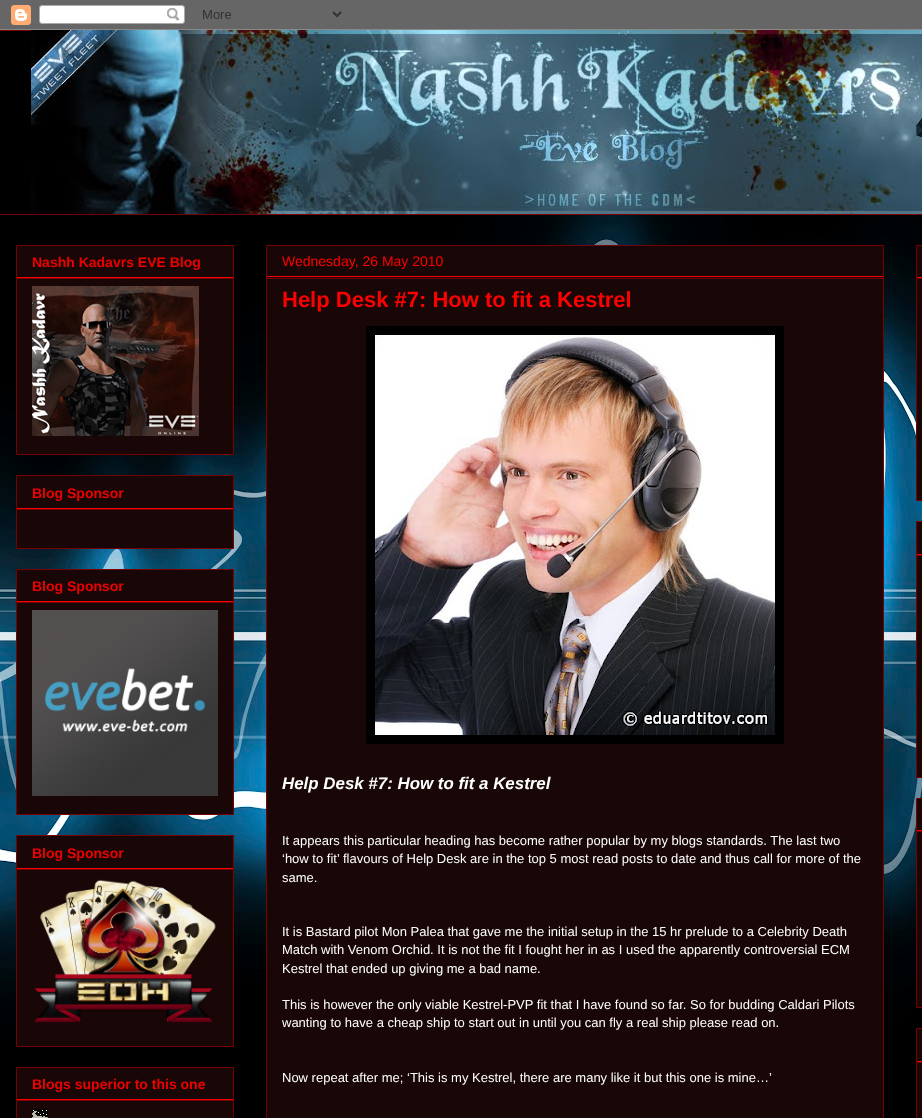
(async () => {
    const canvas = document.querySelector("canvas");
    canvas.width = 922;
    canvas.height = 1118;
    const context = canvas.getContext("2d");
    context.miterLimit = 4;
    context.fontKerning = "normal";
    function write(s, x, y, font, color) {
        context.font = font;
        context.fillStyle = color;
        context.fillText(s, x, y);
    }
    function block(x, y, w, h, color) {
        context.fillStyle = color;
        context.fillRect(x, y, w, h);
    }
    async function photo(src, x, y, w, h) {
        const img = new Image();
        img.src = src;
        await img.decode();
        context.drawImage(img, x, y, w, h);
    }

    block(0, 0, 922, 1118, "rgb(0, 0, 0)");
    await photo("media/1.png", 0, 215, 922, 875);
    await photo("media/2.png", 0, 0, 922, 30);
    block(0, 30, 31, 1, "rgb(119, 0, 0)");
    await photo("media/3.png", 31, 30, 891, 184);
    block(0, 214, 922, 1, "rgb(119, 0, 0)");
    context.fillStyle = "rgb(25, 7, 7)";
    context.beginPath();
    context.rect(16.5, 245.5, 217, 209);
    context.fill();
    context.strokeStyle = "rgb(119, 0, 0)";
    context.stroke();
    block(17, 277, 216, 1, "rgb(255, 0, 0)");
    write("Nashh Kadavrs EVE Blog", 32, 267, "bold 14px Liberation Sans", "rgb(238, 0, 0)");
    block(17, 278, 216, 1, "rgb(119, 0, 0)");
    await photo("media/4.png", 32, 286, 167, 150);
    context.fillStyle = "rgb(25, 7, 7)";
    context.beginPath();
    context.rect(16.5, 475.5, 217, 73);
    context.fill();
    context.stroke();
    block(17, 508, 216, 1, "rgb(255, 0, 0)");
    write("Blog Sponsor", 32, 498, "bold 14px Liberation Sans", "rgb(238, 0, 0)");
    block(17, 509, 216, 1, "rgb(119, 0, 0)");
    context.fillStyle = "rgb(25, 7, 7)";
    context.beginPath();
    context.rect(16.5, 569.5, 217, 245);
    context.fill();
    context.stroke();
    block(17, 601, 216, 1, "rgb(255, 0, 0)");
    write("Blog Sponsor", 32, 591, "bold 14px Liberation Sans", "rgb(238, 0, 0)");
    block(17, 602, 216, 1, "rgb(119, 0, 0)");
    await photo("media/5.png", 32, 610, 186, 186);
    context.fillStyle = "rgb(25, 7, 7)";
    context.beginPath();
    context.rect(16.5, 835.5, 217, 211);
    context.fill();
    context.stroke();
    block(17, 868, 216, 1, "rgb(255, 0, 0)");
    write("Blog Sponsor", 32, 858, "bold 14px Liberation Sans", "rgb(238, 0, 0)");
    block(17, 869, 216, 1, "rgb(119, 0, 0)");
    await photo("media/6.png", 34, 879, 182, 144);
    context.fillStyle = "rgb(25, 7, 7)";
    context.beginPath();
    context.rect(16.5, 1067.5, 217, 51);
    context.fill();
    context.stroke();
    block(17, 1099, 216, 1, "rgb(255, 0, 0)");
    write("Blogs superior to this one", 32, 1089, "bold 14px Liberation Sans", "rgb(238, 0, 0)");
    block(17, 1100, 216, 1, "rgb(119, 0, 0)");
    await photo("media/7.png", 32, 1109, 16, 9);
    context.fillStyle = "rgb(25, 7, 7)";
    context.beginPath();
    context.rect(266.5, 245.5, 617, 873);
    context.fill();
    context.stroke();
    block(267, 276, 616, 1, "rgb(255, 0, 0)");
    write("Wednesday, 26 May 2010", 282, 266, "14px Liberation Sans", "rgb(255, 0, 0)");
    block(267, 278, 616, 1, "rgb(119, 0, 0)");
    write("Help Desk #7: How to fit a Kestrel", 282, 307, "bold 22px Liberation Sans", "rgb(255, 0, 0)");
    block(366, 326, 418, 418, "rgb(0, 0, 0)");
    await photo("media/8.png", 375, 335, 400, 400);
    write("Help Desk #7: How to fit a Kestrel", 282, 789, "italic bold 16.9px Liberation Sans", "rgb(255, 255, 255)");
    write("It appears this particular heading has become rather popular by my blogs standards. The last two", 282, 845, "13px Liberation Sans", "rgb(255, 255, 255)");
    write("‘how to fit’ flavours of Help Desk are in the top 5 most read posts to date and thus call for more of the", 282, 863, "13px Liberation Sans", "rgb(255, 255, 255)");
    write("same.", 282, 882, "13px Liberation Sans", "rgb(255, 255, 255)");
    write("It is Bastard pilot Mon Palea that gave me the initial setup in the 15 hr prelude to a Celebrity Death", 282, 936, "13px Liberation Sans", "rgb(255, 255, 255)");
    write("Match with Venom Orchid. It is not the fit I fought her in as I used the apparently controversial ECM", 282, 954, "13px Liberation Sans", "rgb(255, 255, 255)");
    write("Kestrel that ended up giving me a bad name.", 282, 973, "13px Liberation Sans", "rgb(255, 255, 255)");
    write("This is however the only viable Kestrel-PVP fit that I have found so far. So for budding Caldari Pilots", 282, 1009, "13px Liberation Sans", "rgb(255, 255, 255)");
    write("wanting to have a cheap ship to start out in until you can fly a real ship please read on.", 282, 1027, "13px Liberation Sans", "rgb(255, 255, 255)");
    write("Now repeat after me; ‘This is my Kestrel, there are many like it but this one is mine…’", 282, 1082, "13px Liberation Sans", "rgb(255, 255, 255)");
    context.fillStyle = "rgb(25, 7, 7)";
    context.beginPath();
    context.rect(916.5, 245.5, 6, 255);
    context.fill();
    context.stroke();
    block(917, 277, 5, 1, "rgb(255, 0, 0)");
    block(917, 278, 5, 1, "rgb(119, 0, 0)");
    context.fillStyle = "rgb(25, 7, 7)";
    context.beginPath();
    context.rect(916.5, 521.5, 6, 256);
    context.fill();
    context.stroke();
    block(917, 554, 5, 1, "rgb(255, 0, 0)");
    block(917, 555, 5, 1, "rgb(119, 0, 0)");
    context.fillStyle = "rgb(25, 7, 7)";
    context.beginPath();
    context.rect(916.5, 798.5, 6, 209);
    context.fill();
    context.stroke();
    block(917, 830, 5, 1, "rgb(255, 0, 0)");
    block(917, 831, 5, 1, "rgb(119, 0, 0)");
    context.fillStyle = "rgb(25, 7, 7)";
    context.beginPath();
    context.rect(916.5, 1028.5, 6, 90);
    context.fill();
    context.stroke();
    block(917, 1061, 5, 1, "rgb(255, 0, 0)");
    block(917, 1062, 5, 1, "rgb(119, 0, 0)");
})();
